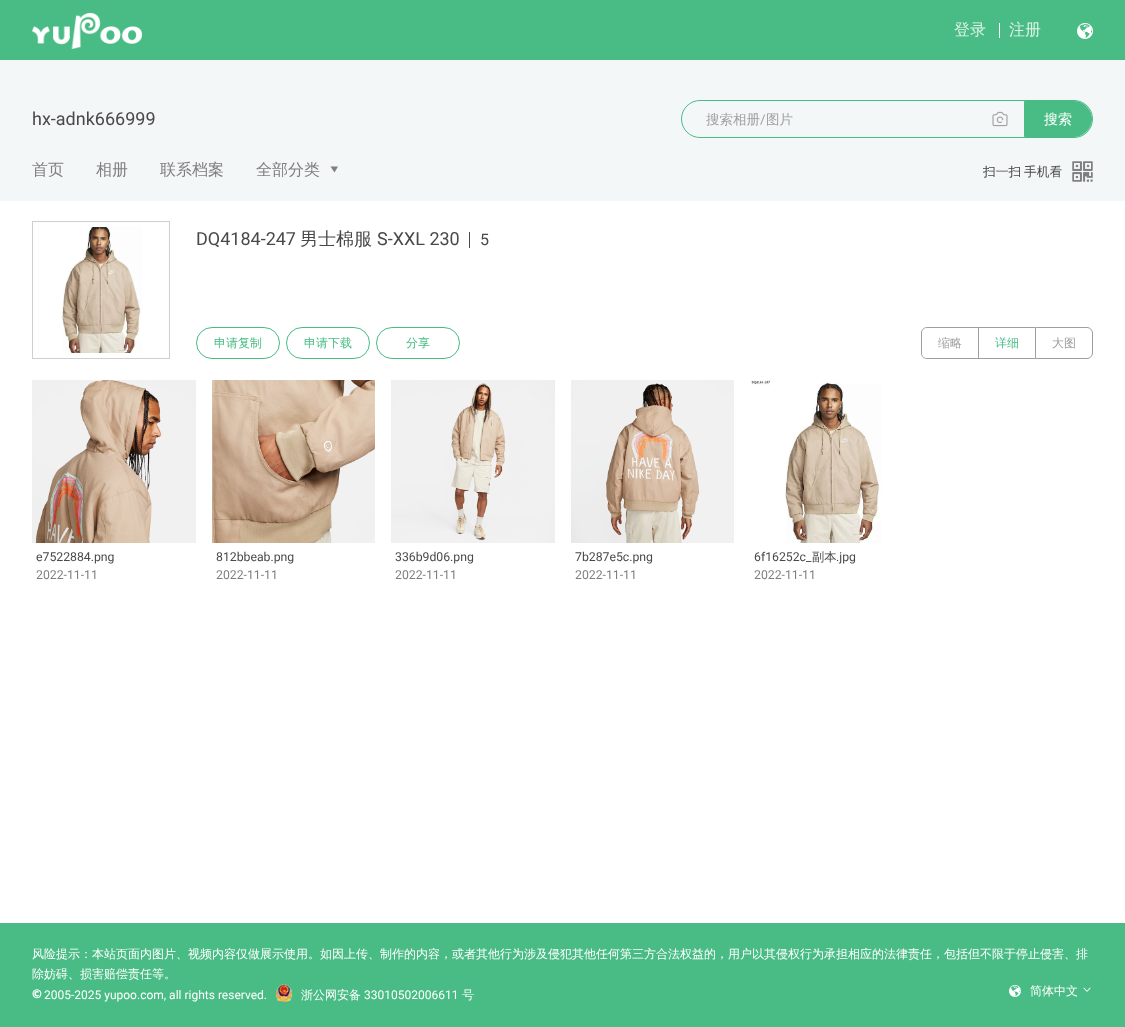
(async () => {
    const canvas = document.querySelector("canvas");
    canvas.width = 1125;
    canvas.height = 1027;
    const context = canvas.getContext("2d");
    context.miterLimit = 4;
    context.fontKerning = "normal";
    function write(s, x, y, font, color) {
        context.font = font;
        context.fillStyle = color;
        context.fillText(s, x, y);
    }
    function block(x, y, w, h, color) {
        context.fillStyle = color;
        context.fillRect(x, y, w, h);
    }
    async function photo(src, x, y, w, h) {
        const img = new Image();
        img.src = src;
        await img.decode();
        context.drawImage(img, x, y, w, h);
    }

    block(0, 0, 1125, 1027, "rgb(255, 255, 255)");
    block(0, 0, 1125, 60, "rgb(73, 188, 133)");
    await photo("media/1.png", 32, 13, 110, 36);
    write("登录", 954, 35, "500 16px WenQuanYi Zen Hei", "rgb(219, 242, 231)");
    block(999, 23, 1, 15, "rgb(255, 255, 255)");
    write("注册", 1009, 35, "500 16px WenQuanYi Zen Hei", "rgb(219, 242, 231)");
    await photo("media/2.png", 1077, 23, 16, 16);
    block(0, 60, 1125, 141, "rgb(243, 247, 247)");
    write("hx-adnk666999", 32, 125, "18px Roboto", "rgb(73, 73, 73)");
    context.beginPath();
    context.roundRect(681.5, 100.5, 411, 37, 18.5);
    context.strokeStyle = "rgb(73, 188, 133)";
    context.stroke();
    write("搜索相册", 706, 124, "500 13.5px WenQuanYi Zen Hei", "rgb(159, 159, 159)");
    write("/", 760, 124, "13.5px Roboto", "rgb(159, 159, 159)");
    write("图片", 766, 124, "500 13.5px WenQuanYi Zen Hei", "rgb(159, 159, 159)");
    await photo("media/3.png", 992, 111, 16, 16);
    context.fillStyle = "rgb(73, 188, 133)";
    context.beginPath();
    context.roundRect(1024.5, 101.5, 67, 35, [0, 17.5, 17.5, 0]);
    context.fill();
    context.stroke();
    write("搜", 1044, 124, "14px Noto Sans", "rgb(255, 255, 255)");
    write("索", 1058, 124, "500 14px WenQuanYi Zen Hei", "rgb(255, 255, 255)");
    write("首页", 32, 175, "500 16px WenQuanYi Zen Hei", "rgb(127, 127, 127)");
    write("相册", 96, 175, "500 16px WenQuanYi Zen Hei", "rgb(127, 127, 127)");
    write("联系档案", 160, 175, "500 16px WenQuanYi Zen Hei", "rgb(127, 127, 127)");
    write("全部分类", 256, 175, "500 16px WenQuanYi Zen Hei", "rgb(127, 127, 127)");
    context.beginPath();
    context.moveTo(334.5, 172.5);
    context.lineTo(330.5, 166.5);
    context.lineTo(338, 166.5);
    context.closePath();
    context.fill();
    context.wordSpacing = "-1px";
    write("扫一扫 手机看", 983, 176, "500 12.75px WenQuanYi Zen Hei", "rgb(73, 73, 73)");
    await photo("media/4.png", 1072, 161, 21, 21);
    context.strokeStyle = "rgb(207, 207, 207)";
    context.strokeRect(32.5, 221.5, 137, 137);
    await photo("media/5.png", 38, 227, 104, 126);
    context.wordSpacing = "0px";
    write("DQ4184-247", 196, 245, "18px Roboto", "rgb(73, 73, 73)");
    write("男士棉服", 300, 245, "500 18px WenQuanYi Zen Hei", "rgb(73, 73, 73)");
    write("S-XXL 230", 377, 245, "18px Roboto", "rgb(73, 73, 73)");
    block(469, 232, 1, 16, "rgb(73, 73, 73)");
    write("5", 480, 245, "16px Roboto", "rgb(73, 73, 73)");
    context.beginPath();
    context.roundRect(196.5, 327.5, 83, 31, 15.5);
    context.strokeStyle = "rgb(73, 188, 133)";
    context.stroke();
    write("申请复制", 214, 347, "500 12px WenQuanYi Zen Hei", "rgb(73, 188, 133)");
    context.beginPath();
    context.roundRect(286.5, 327.5, 83, 31, 15.5);
    context.stroke();
    write("申请下载", 304, 347, "500 12px WenQuanYi Zen Hei", "rgb(73, 188, 133)");
    context.beginPath();
    context.roundRect(376.5, 327.5, 83, 31, 15.5);
    context.stroke();
    write("分享", 406, 347, "500 12px WenQuanYi Zen Hei", "rgb(73, 188, 133)");
    context.fillStyle = "rgb(159, 159, 159)";
    context.beginPath();
    context.moveTo(927, 327);
    context.lineTo(978, 327);
    context.lineTo(978, 359);
    context.lineTo(927, 359);
    context.bezierCurveTo(924, 359, 921, 356, 921, 353);
    context.lineTo(921, 333);
    context.bezierCurveTo(921, 330, 924, 327, 927, 327);
    context.closePath();
    context.moveTo(927, 328);
    context.lineTo(978, 328);
    context.lineTo(978, 358);
    context.lineTo(927, 358);
    context.bezierCurveTo(924, 358, 922, 356, 922, 353);
    context.lineTo(922, 333);
    context.bezierCurveTo(922, 330, 924, 328, 927, 328);
    context.closePath();
    context.fill("evenodd");
    write("缩略", 938, 347, "500 12px WenQuanYi Zen Hei", "rgb(159, 159, 159)");
    block(978, 327, 57, 1, "rgb(159, 159, 159)");
    block(978, 358, 57, 1, "rgb(159, 159, 159)");
    block(978, 327, 1, 32, "rgb(159, 159, 159)");
    write("详细", 995, 347, "500 12px WenQuanYi Zen Hei", "rgb(73, 188, 133)");
    context.beginPath();
    context.roundRect(1035.5, 327.5, 57, 31, [0, 5.5, 5.5, 0]);
    context.strokeStyle = "rgb(159, 159, 159)";
    context.stroke();
    write("大图", 1052, 347, "500 12px WenQuanYi Zen Hei", "rgb(159, 159, 159)");
    await photo("media/6.png", 32, 380, 164, 163);
    write("e7522884.png", 36, 561, "12.25px Roboto", "rgb(73, 73, 73)");
    write("2022-11-11", 36, 579, "12.25px Roboto", "rgb(127, 127, 127)");
    await photo("media/7.png", 212, 380, 163, 163);
    write("812bbeab.png", 216, 561, "12.25px Roboto", "rgb(73, 73, 73)");
    write("2022-11-11", 216, 579, "12.25px Roboto", "rgb(127, 127, 127)");
    await photo("media/8.png", 391, 380, 164, 163);
    write("336b9d06.png", 395, 561, "12.25px Roboto", "rgb(73, 73, 73)");
    write("2022-11-11", 395, 579, "12.25px Roboto", "rgb(127, 127, 127)");
    await photo("media/9.png", 571, 380, 163, 163);
    write("7b287e5c.png", 575, 561, "12.25px Roboto", "rgb(73, 73, 73)");
    write("2022-11-11", 575, 579, "12.25px Roboto", "rgb(127, 127, 127)");
    await photo("media/10.png", 751, 380, 131, 163);
    write("6f16252c_", 754, 561, "12.25px Roboto", "rgb(73, 73, 73)");
    write("副本", 812, 561, "500 12.25px WenQuanYi Zen Hei", "rgb(73, 73, 73)");
    write(".jpg", 836, 561, "12.25px Roboto", "rgb(73, 73, 73)");
    write("2022-11-11", 754, 579, "12.25px Roboto", "rgb(127, 127, 127)");
    block(0, 923, 1125, 104, "rgb(73, 188, 133)");
    write("风", 32, 958, "12px Noto Sans", "rgb(255, 255, 255)");
    write("险提示：本站页面内图片、视频内容仅做展示使用。如因上传、制作的内容，或者其他行为涉及侵犯其他任何第三方合法权益的，用户以其侵权行为承担相应的法律责任，包括但不限于停止侵害、排", 44, 958, "500 12px WenQuanYi Zen Hei", "rgb(255, 255, 255)");
    write("除妨碍、损害赔偿责任等。", 32, 978, "500 12px WenQuanYi Zen Hei", "rgb(255, 255, 255)");
    write("©", 32, 998, "900 12px Noto Sans", "rgb(255, 255, 255)");
    write("2005-2025 yupoo.com, all rights reserved.", 44, 999, "12px Roboto", "rgb(255, 255, 255)");
    await photo("media/11.png", 276, 984, 17, 18);
    write("浙公网安备", 301, 999, "500 12px WenQuanYi Zen Hei", "rgb(255, 255, 255)");
    write("33010502006611", 364, 999, "12px Roboto", "rgb(255, 255, 255)");
    write("号", 462, 999, "500 12px WenQuanYi Zen Hei", "rgb(255, 255, 255)");
    await photo("media/12.png", 1009, 985, 12, 12);
    write("简体中文", 1030, 995, "500 12px WenQuanYi Zen Hei", "rgb(255, 255, 255)");
    await photo("media/13.png", 1083, 987, 8, 5);
})();
